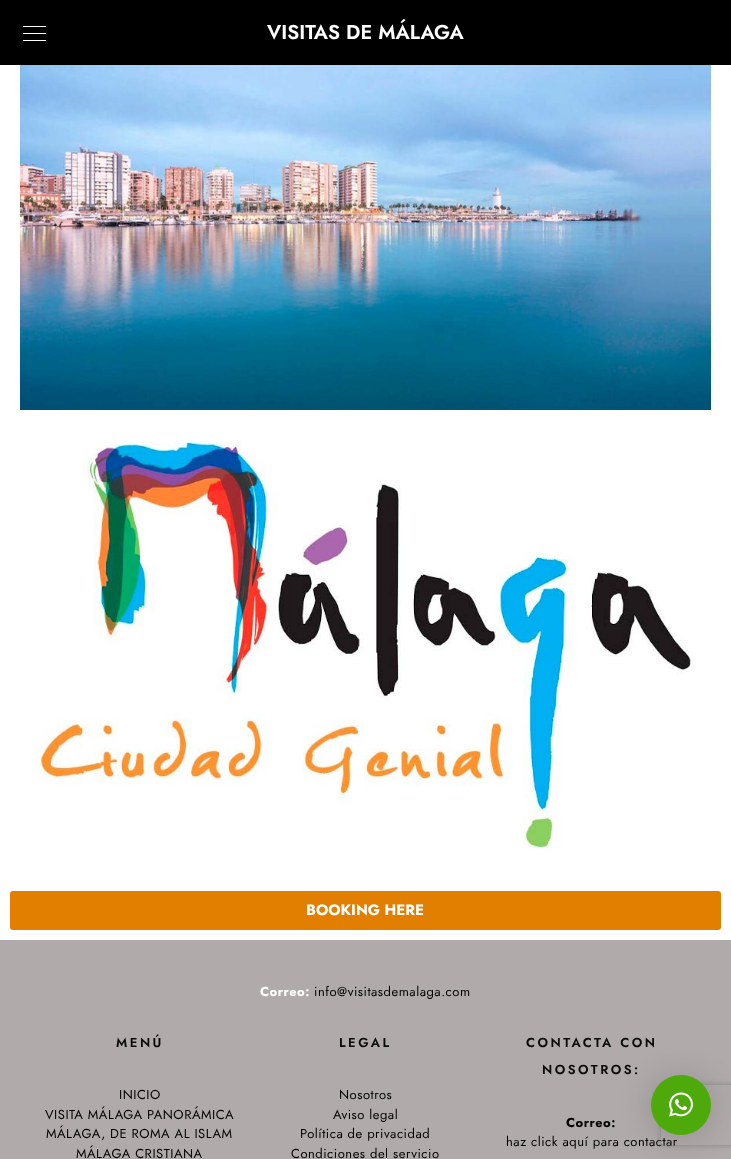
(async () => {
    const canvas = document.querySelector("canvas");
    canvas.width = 731;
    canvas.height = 1159;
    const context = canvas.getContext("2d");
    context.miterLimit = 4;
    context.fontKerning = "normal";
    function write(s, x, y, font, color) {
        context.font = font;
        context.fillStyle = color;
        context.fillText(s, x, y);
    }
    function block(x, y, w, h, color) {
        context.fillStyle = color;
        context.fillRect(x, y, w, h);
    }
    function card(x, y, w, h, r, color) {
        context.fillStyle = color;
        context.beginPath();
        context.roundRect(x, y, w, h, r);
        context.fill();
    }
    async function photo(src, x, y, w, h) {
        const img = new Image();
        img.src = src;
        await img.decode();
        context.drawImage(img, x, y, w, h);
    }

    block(0, 0, 731, 1159, "rgb(255, 255, 255)");
    block(0, 0, 731, 65, "rgb(0, 0, 0)");
    block(23, 33, 23, 1, "rgb(255, 255, 255)");
    block(23, 26, 23, 1, "rgb(255, 255, 255)");
    block(23, 40, 23, 1, "rgb(255, 255, 255)");
    write("VISITAS DE MÁLAGA", 267, 39, "600 20px Jost", "rgb(255, 255, 255)");
    await photo("media/1.png", 20, 65, 691, 345);
    await photo("media/2.png", 32, 441, 664, 409);
    card(10, 891, 711, 39, 3, "rgb(226, 127, 0)");
    write("BOOKING HERE", 306, 915, "bold 15px Jost", "rgb(255, 255, 255)");
    block(0, 940, 731, 219, "rgb(176, 170, 170)");
    context.letterSpacing = "0.5px";
    write("Correo:", 260, 996, "bold 13px Jost", "rgb(255, 255, 255)");
    write("info@visitasdemalaga.com", 314, 996, "13px Jost", "rgb(0, 0, 0)");
    context.letterSpacing = "2.5px";
    write("MENÚ", 116, 1047, "600 13px Jost", "rgb(10, 10, 10)");
    context.letterSpacing = "0.5px";
    write("INICIO", 119, 1099, "13px Jost", "rgb(0, 0, 0)");
    write("VISITA MÁLAGA PANORÁMICA", 45, 1119, "13px Jost", "rgb(0, 0, 0)");
    write("MÁLAGA, DE ROMA AL ISLAM", 46, 1138, "13px Jost", "rgb(0, 0, 0)");
    write("MÁLAGA CRISTIANA", 76, 1158, "13px Jost", "rgb(0, 0, 0)");
    context.letterSpacing = "2.5px";
    write("LEGAL", 339, 1047, "600 13px Jost", "rgb(10, 10, 10)");
    context.letterSpacing = "0.5px";
    write("Nosotros", 339, 1099, "13px Jost", "rgb(0, 0, 0)");
    write("Aviso legal", 333, 1119, "13px Jost", "rgb(0, 0, 0)");
    write("Política de privacidad", 300, 1138, "13px Jost", "rgb(0, 0, 0)");
    write("Condiciones del servicio", 291, 1158, "13px Jost", "rgb(0, 0, 0)");
    context.letterSpacing = "2.5px";
    write("CONTACTA CON", 526, 1047, "600 13px Jost", "rgb(10, 10, 10)");
    write("NOSOTROS:", 542, 1074, "600 13px Jost", "rgb(10, 10, 10)");
    context.letterSpacing = "0.5px";
    write("Correo:", 566, 1127, "bold 13px Jost", "rgb(0, 0, 0)");
    write("haz click aquí para contactar", 506, 1146, "13px Jost", "rgb(0, 0, 0)");
    context.fillStyle = "rgba(0, 0, 0, 0.16)";
    context.filter = "blur(16px)";
    context.beginPath();
    context.roundRect(651, 1077, 60, 60, 30);
    context.fill();
    context.filter = "none";
    context.save();
    context.beginPath();
    context.moveTo(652, 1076);
    context.lineTo(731, 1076);
    context.lineTo(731, 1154);
    context.lineTo(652, 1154);
    context.closePath();
    context.moveTo(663, 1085);
    context.lineTo(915, 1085);
    context.bezierCurveTo(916, 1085, 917, 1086, 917, 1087);
    context.lineTo(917, 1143);
    context.bezierCurveTo(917, 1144, 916, 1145, 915, 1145);
    context.lineTo(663, 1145);
    context.bezierCurveTo(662, 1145, 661, 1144, 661, 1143);
    context.lineTo(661, 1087);
    context.bezierCurveTo(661, 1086, 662, 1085, 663, 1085);
    context.closePath();
    context.clip("evenodd");
    context.fillStyle = "rgb(128, 128, 128)";
    context.filter = "blur(2.5px)";
    context.beginPath();
    context.roundRect(661, 1085, 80, 60, 2);
    context.fill();
    context.filter = "none";
    context.restore();
    context.fillStyle = "rgb(78, 170, 11)";
    context.beginPath();
    context.arc(681, 1105, 30, 0, Math.PI * 2);
    context.fill();
    await photo("media/3.png", 669, 1092, 24, 25);
})();
